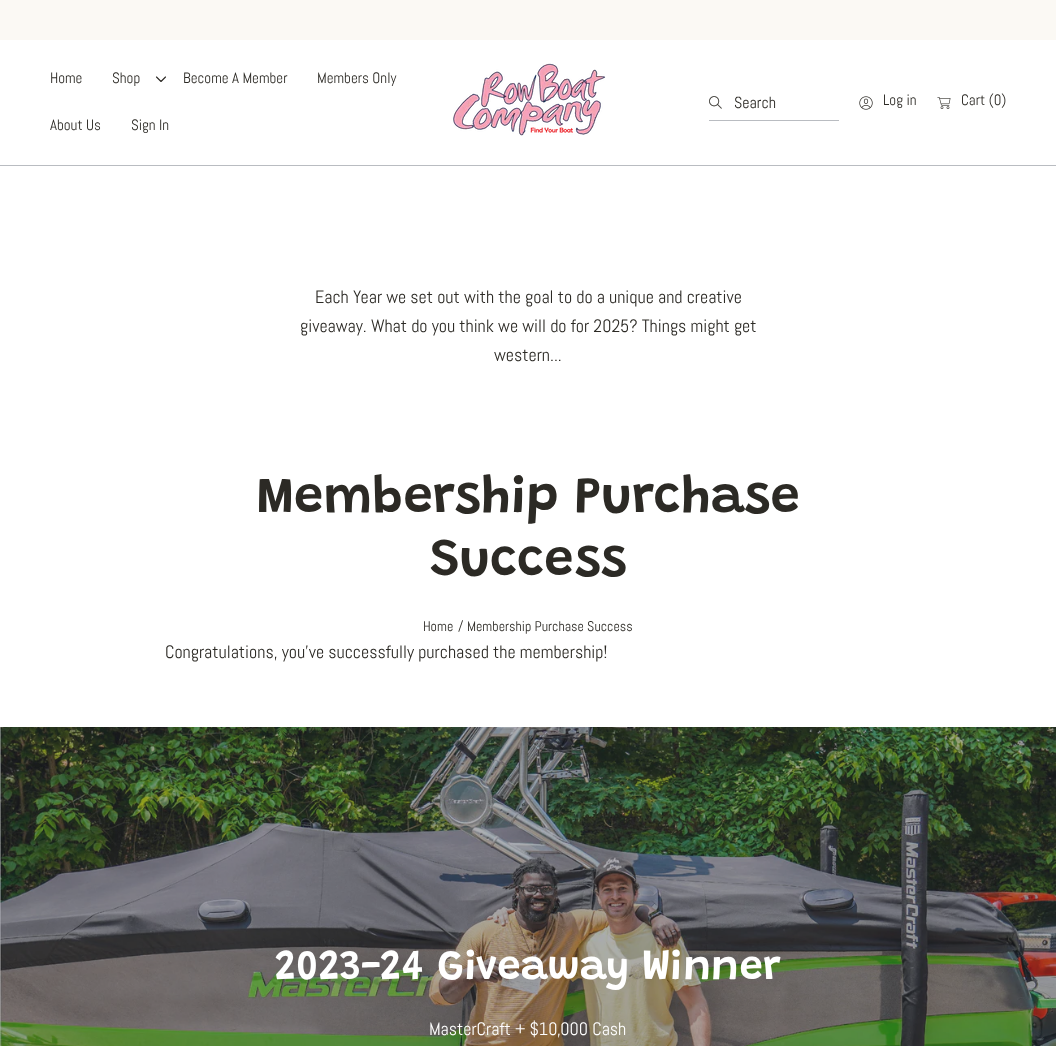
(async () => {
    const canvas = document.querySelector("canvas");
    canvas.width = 1056;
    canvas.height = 1046;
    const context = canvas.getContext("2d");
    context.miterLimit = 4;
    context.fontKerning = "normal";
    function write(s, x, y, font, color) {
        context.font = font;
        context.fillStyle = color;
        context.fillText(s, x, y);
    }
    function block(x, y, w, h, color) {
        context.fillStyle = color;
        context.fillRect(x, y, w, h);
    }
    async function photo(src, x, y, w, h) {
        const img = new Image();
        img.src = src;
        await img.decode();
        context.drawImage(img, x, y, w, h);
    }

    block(0, 0, 1056, 1046, "rgb(255, 255, 255)");
    block(0, 0, 1056, 40, "rgb(251, 249, 244)");
    block(0, 165, 1056, 1, "rgb(185, 188, 193)");
    write("Home", 50, 83, "15px Abel", "rgb(44, 42, 37)");
    write("Shop", 112, 83, "15px Abel", "rgb(44, 42, 37)");
    context.beginPath();
    context.moveTo(156.5, 77);
    context.lineTo(161, 81.5);
    context.lineTo(165.5, 77);
    context.strokeStyle = "rgb(44, 42, 37)";
    context.lineWidth = 1.1;
    context.lineCap = "round";
    context.lineJoin = "round";
    context.stroke();
    write("Become A Member", 183, 83, "15px Abel", "rgb(44, 42, 37)");
    write("Members Only", 317, 83, "15px Abel", "rgb(44, 42, 37)");
    write("About Us", 50, 130, "15px Abel", "rgb(44, 42, 37)");
    write("Sign In", 131, 130, "15px Abel", "rgb(44, 42, 37)");
    await photo("media/1.png", 453, 63, 153, 73);
    await photo("media/2.png", 709, 96, 13, 13);
    write("Search", 734, 108, "16px Abel", "rgb(44, 42, 37)");
    block(709, 120, 130, 1, "rgb(185, 188, 193)");
    await photo("media/3.png", 859, 96, 14, 14);
    write("Log in", 883, 105, "15px Abel", "rgb(44, 42, 37)");
    await photo("media/4.png", 937, 97, 14, 12);
    write("Cart (0)", 961, 105, "15px Abel", "rgb(44, 42, 37)");
    write("Each Year we set out with the goal to do a unique and creative", 315, 303, "18px Abel", "rgb(44, 42, 37)");
    write("giveaway. What do you think we will do for 2025? Things might get", 300, 332, "18px Abel", "rgb(44, 42, 37)");
    write("western...", 494, 361, "18px Abel", "rgb(44, 42, 37)");
    write("Membership Purchase", 256, 512, "600 52.5px Grandstander", "rgb(44, 42, 37)");
    write("Success", 430, 575, "600 52.5px Grandstander", "rgb(44, 42, 37)");
    write("Home", 423, 631, "14px Abel", "rgb(44, 42, 37)");
    write("/", 458, 631, "14px Abel", "rgb(44, 42, 37)");
    write("Membership Purchase Success", 467, 631, "14px Abel", "rgb(44, 42, 37)");
    write("Congratulations, you've successfully purchased the membership!", 165, 658, "18px Abel", "rgb(44, 42, 37)");
    await photo("media/5.png", 0, 727, 1056, 319);
    write("2023-24 Giveaway Winner", 275, 979, "600 42px Grandstander", "rgb(255, 255, 255)");
    write("MasterCraft + $10,000 Cash", 429, 1035, "18px Abel", "rgb(255, 255, 255)");
})();
